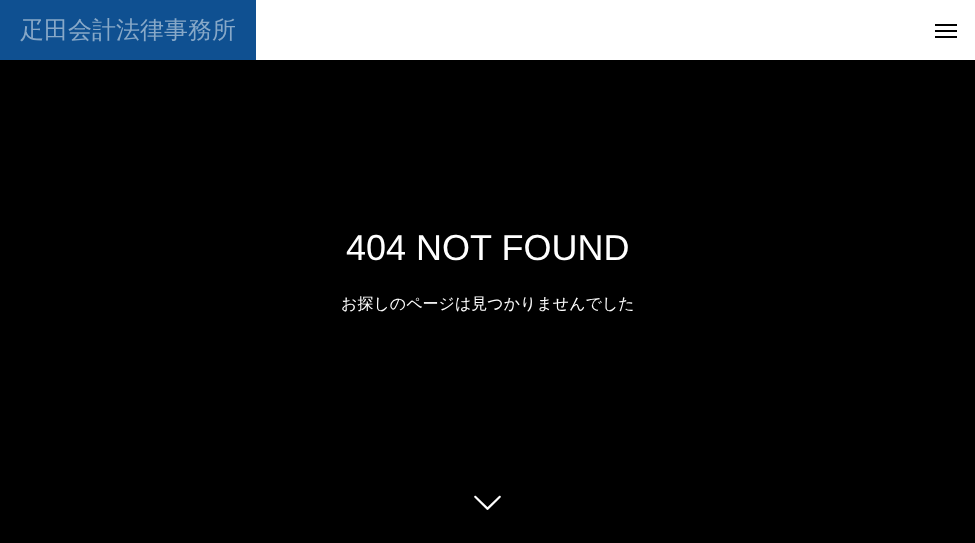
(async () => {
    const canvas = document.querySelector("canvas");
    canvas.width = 975;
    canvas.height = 543;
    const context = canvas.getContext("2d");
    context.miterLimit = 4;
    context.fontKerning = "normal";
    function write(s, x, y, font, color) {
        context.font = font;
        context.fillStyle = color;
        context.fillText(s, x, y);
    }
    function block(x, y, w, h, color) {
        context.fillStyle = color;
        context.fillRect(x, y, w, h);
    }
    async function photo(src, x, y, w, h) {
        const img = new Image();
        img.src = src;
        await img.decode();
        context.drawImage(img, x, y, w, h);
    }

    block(0, 0, 975, 543, "rgb(0, 0, 0)");
    block(0, 0, 256, 60, "rgb(15, 80, 145)");
    write("疋田会計法律事務所", 20, 38, "500 24px WenQuanYi Zen Hei", "rgb(135, 168, 200)");
    block(256, 0, 719, 60, "rgb(255, 255, 255)");
    block(935, 24, 22, 2, "rgb(0, 0, 0)");
    block(935, 30, 22, 2, "rgb(0, 0, 0)");
    block(935, 36, 22, 2, "rgb(0, 0, 0)");
    write("404 NOT FOUND", 346, 260, "36px Liberation Sans", "rgb(255, 255, 255)");
    write("お探しのページは見つかりませんでした", 341, 309, "500 16px WenQuanYi Zen Hei", "rgb(255, 255, 255)");
    await photo("media/1.png", 474, 495, 27, 15);
})();
